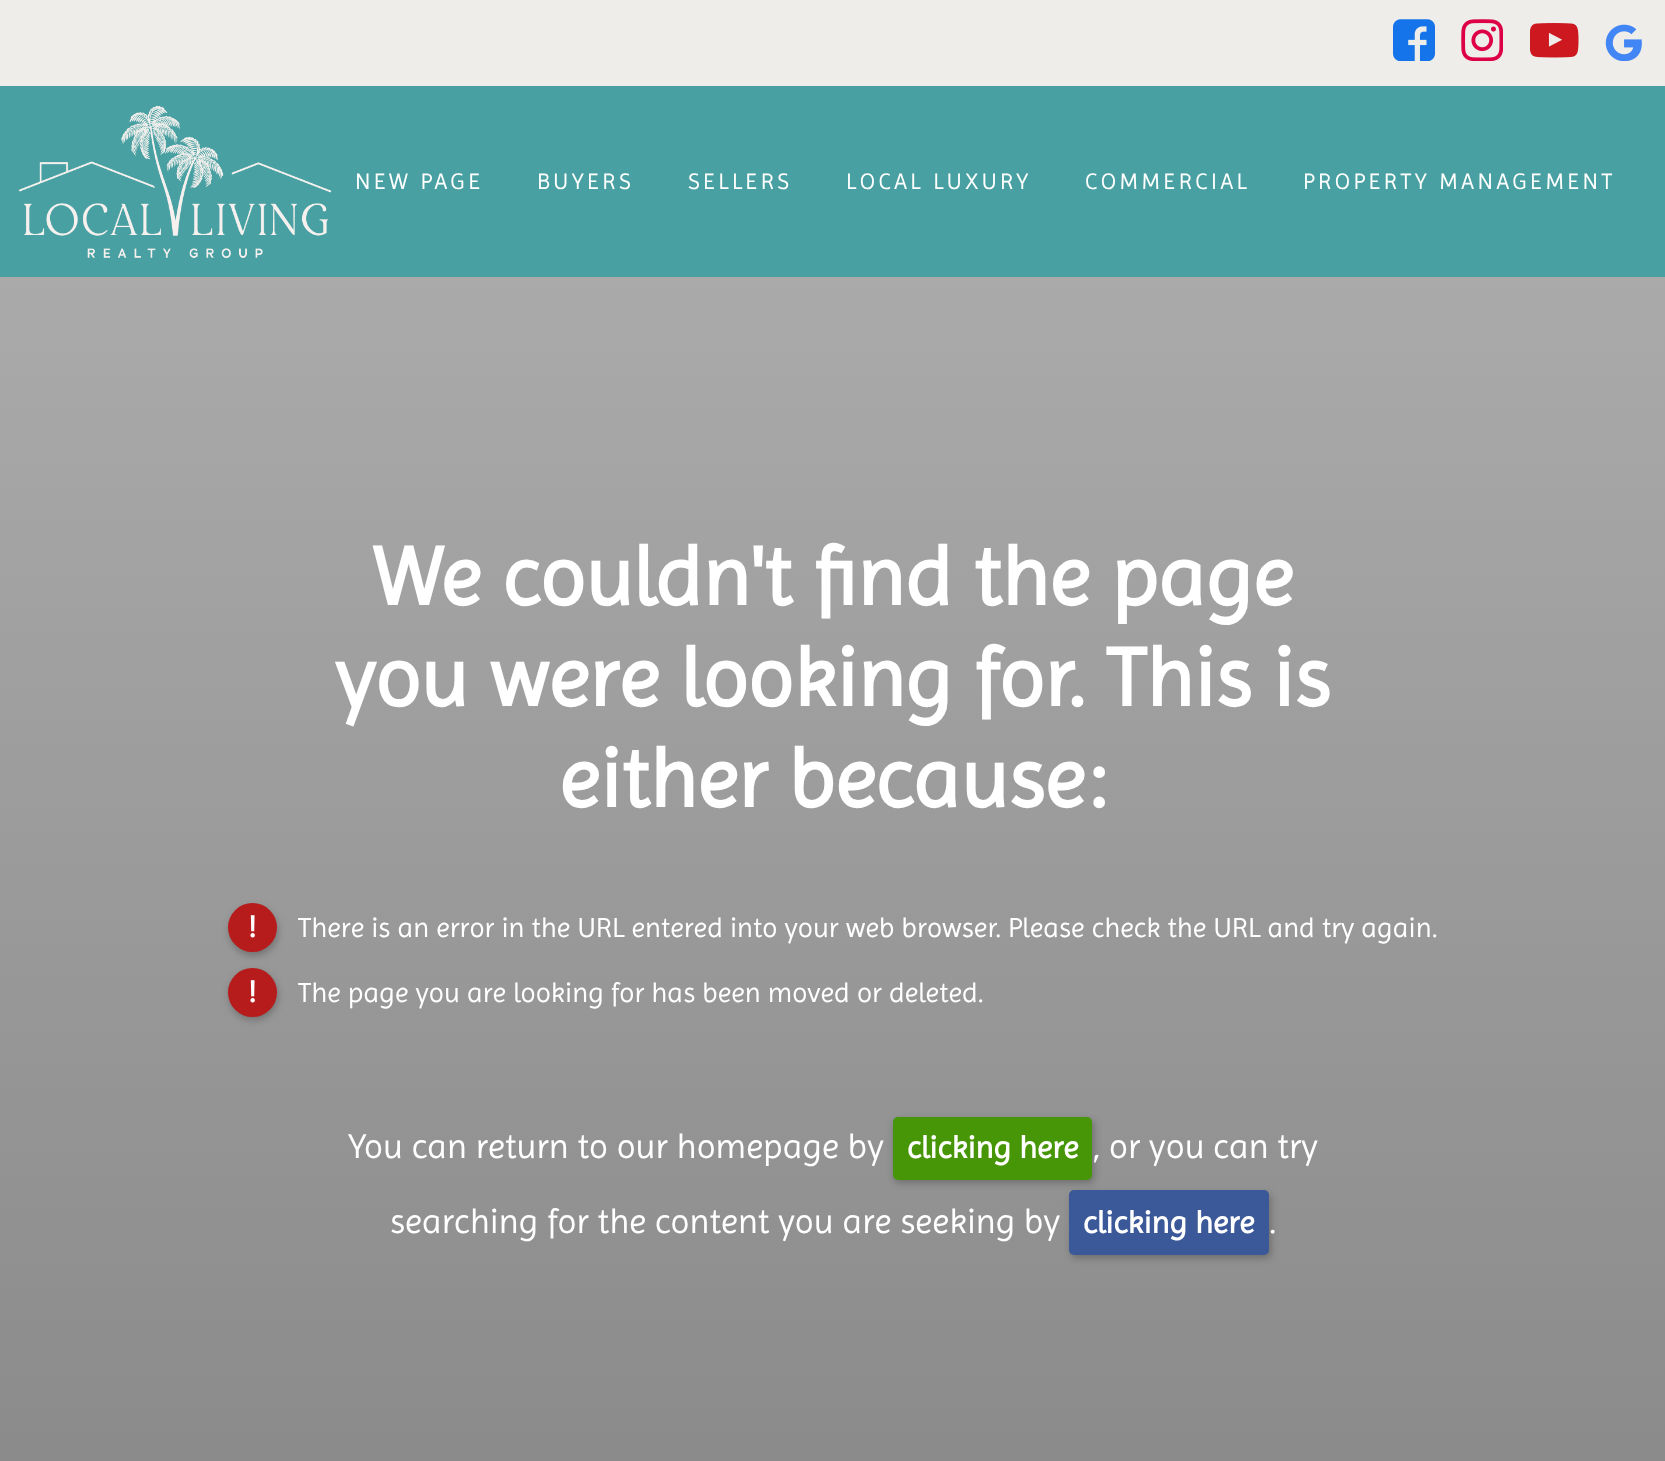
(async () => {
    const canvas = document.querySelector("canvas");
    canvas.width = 1665;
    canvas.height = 1461;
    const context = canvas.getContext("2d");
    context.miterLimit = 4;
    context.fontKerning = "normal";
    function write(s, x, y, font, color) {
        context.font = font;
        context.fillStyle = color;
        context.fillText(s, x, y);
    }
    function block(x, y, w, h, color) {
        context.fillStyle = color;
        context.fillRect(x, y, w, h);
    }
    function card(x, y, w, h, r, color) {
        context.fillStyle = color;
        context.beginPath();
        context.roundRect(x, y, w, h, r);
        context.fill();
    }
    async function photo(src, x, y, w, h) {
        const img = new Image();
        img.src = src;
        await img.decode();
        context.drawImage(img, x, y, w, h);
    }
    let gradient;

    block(0, 0, 1665, 1461, "rgb(238, 237, 234)");
    await photo("media/1.png", 1393, 19, 42, 42);
    await photo("media/2.png", 1461, 19, 42, 42);
    await photo("media/3.png", 1530, 23, 49, 35);
    await photo("media/4.png", 1605, 24, 37, 37);
    block(0, 86, 1665, 191, "rgb(72, 160, 162)");
    await photo("media/5.png", 18, 105, 314, 154);
    context.letterSpacing = "3.5px";
    write("NEW PAGE", 355, 189, "22.75px Imprima", "rgb(255, 255, 255)");
    write("BUYERS", 537, 189, "22.75px Imprima", "rgb(255, 255, 255)");
    write("SELLERS", 688, 189, "22.75px Imprima", "rgb(255, 255, 255)");
    write("LOCAL LUXURY", 846, 189, "22.75px Imprima", "rgb(255, 255, 255)");
    write("COMMERCIAL", 1085, 189, "22.75px Imprima", "rgb(255, 255, 255)");
    write("PROPERTY MANAGEMENT", 1303, 189, "22.75px Imprima", "rgb(255, 255, 255)");
    gradient = context.createLinearGradient(833, 276, 833, 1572);
    gradient.addColorStop(0, "rgb(170, 170, 170)");
    gradient.addColorStop(1, "rgb(136, 136, 136)");
    context.fillStyle = gradient;
    context.fillRect(0, 277, 1665, 1184);
    context.letterSpacing = "0px";
    write("We couldn't find the page", 373, 605, "bold 84px Imprima", "rgb(255, 255, 255)");
    write("you were looking for. This is", 335, 706, "bold 84px Imprima", "rgb(255, 255, 255)");
    write("either because:", 559, 807, "bold 84px Imprima", "rgb(255, 255, 255)");
    context.fillStyle = "rgba(0, 0, 0, 0.24)";
    context.filter = "blur(3.5px)";
    context.beginPath();
    context.roundRect(229, 907, 49, 49, 24.5);
    context.fill();
    context.filter = "none";
    context.fillStyle = "rgb(183, 28, 28)";
    context.beginPath();
    context.arc(252.5, 927.5, 24.5, 0, Math.PI * 2);
    context.fill();
    write("!", 248, 937, "bold 31.5px Imprima", "rgb(255, 255, 255)");
    write("There is an error in the URL entered into your web browser. Please check the URL and try again.", 298, 937, "28px Imprima", "rgb(255, 255, 255)");
    context.fillStyle = "rgba(0, 0, 0, 0.24)";
    context.filter = "blur(3.5px)";
    context.beginPath();
    context.roundRect(229, 971, 49, 49, 24.5);
    context.fill();
    context.filter = "none";
    context.fillStyle = "rgb(183, 28, 28)";
    context.beginPath();
    context.arc(252.5, 992.5, 24.5, 0, Math.PI * 2);
    context.fill();
    write("!", 248, 1002, "bold 31.5px Imprima", "rgb(255, 255, 255)");
    write("The page you are looking for has been moved or deleted.", 298, 1002, "28px Imprima", "rgb(255, 255, 255)");
    write("You can return to our homepage by", 348, 1158, "35px Imprima", "rgb(255, 255, 255)");
    context.fillStyle = "rgba(0, 0, 0, 0.24)";
    context.filter = "blur(3.5px)";
    context.beginPath();
    context.roundRect(894, 1120, 200, 63, 5);
    context.fill();
    context.filter = "none";
    card(893, 1117, 199, 63, 5, "rgb(71, 150, 7)");
    write("clicking here", 907, 1158, "bold 31.5px Imprima", "rgb(255, 255, 255)");
    write(", or you can try", 1093, 1158, "35px Imprima", "rgb(255, 255, 255)");
    write("searching for the content you are seeking by", 390, 1233, "35px Imprima", "rgb(255, 255, 255)");
    context.fillStyle = "rgba(0, 0, 0, 0.24)";
    context.filter = "blur(3.5px)";
    context.beginPath();
    context.roundRect(1071, 1194, 200, 64, 5);
    context.fill();
    context.filter = "none";
    card(1069, 1190, 200, 65, 5, "rgb(59, 89, 152)");
    write("clicking here", 1083, 1233, "bold 31.5px Imprima", "rgb(255, 255, 255)");
    write(".", 1269, 1233, "35px Imprima", "rgb(255, 255, 255)");
})();
